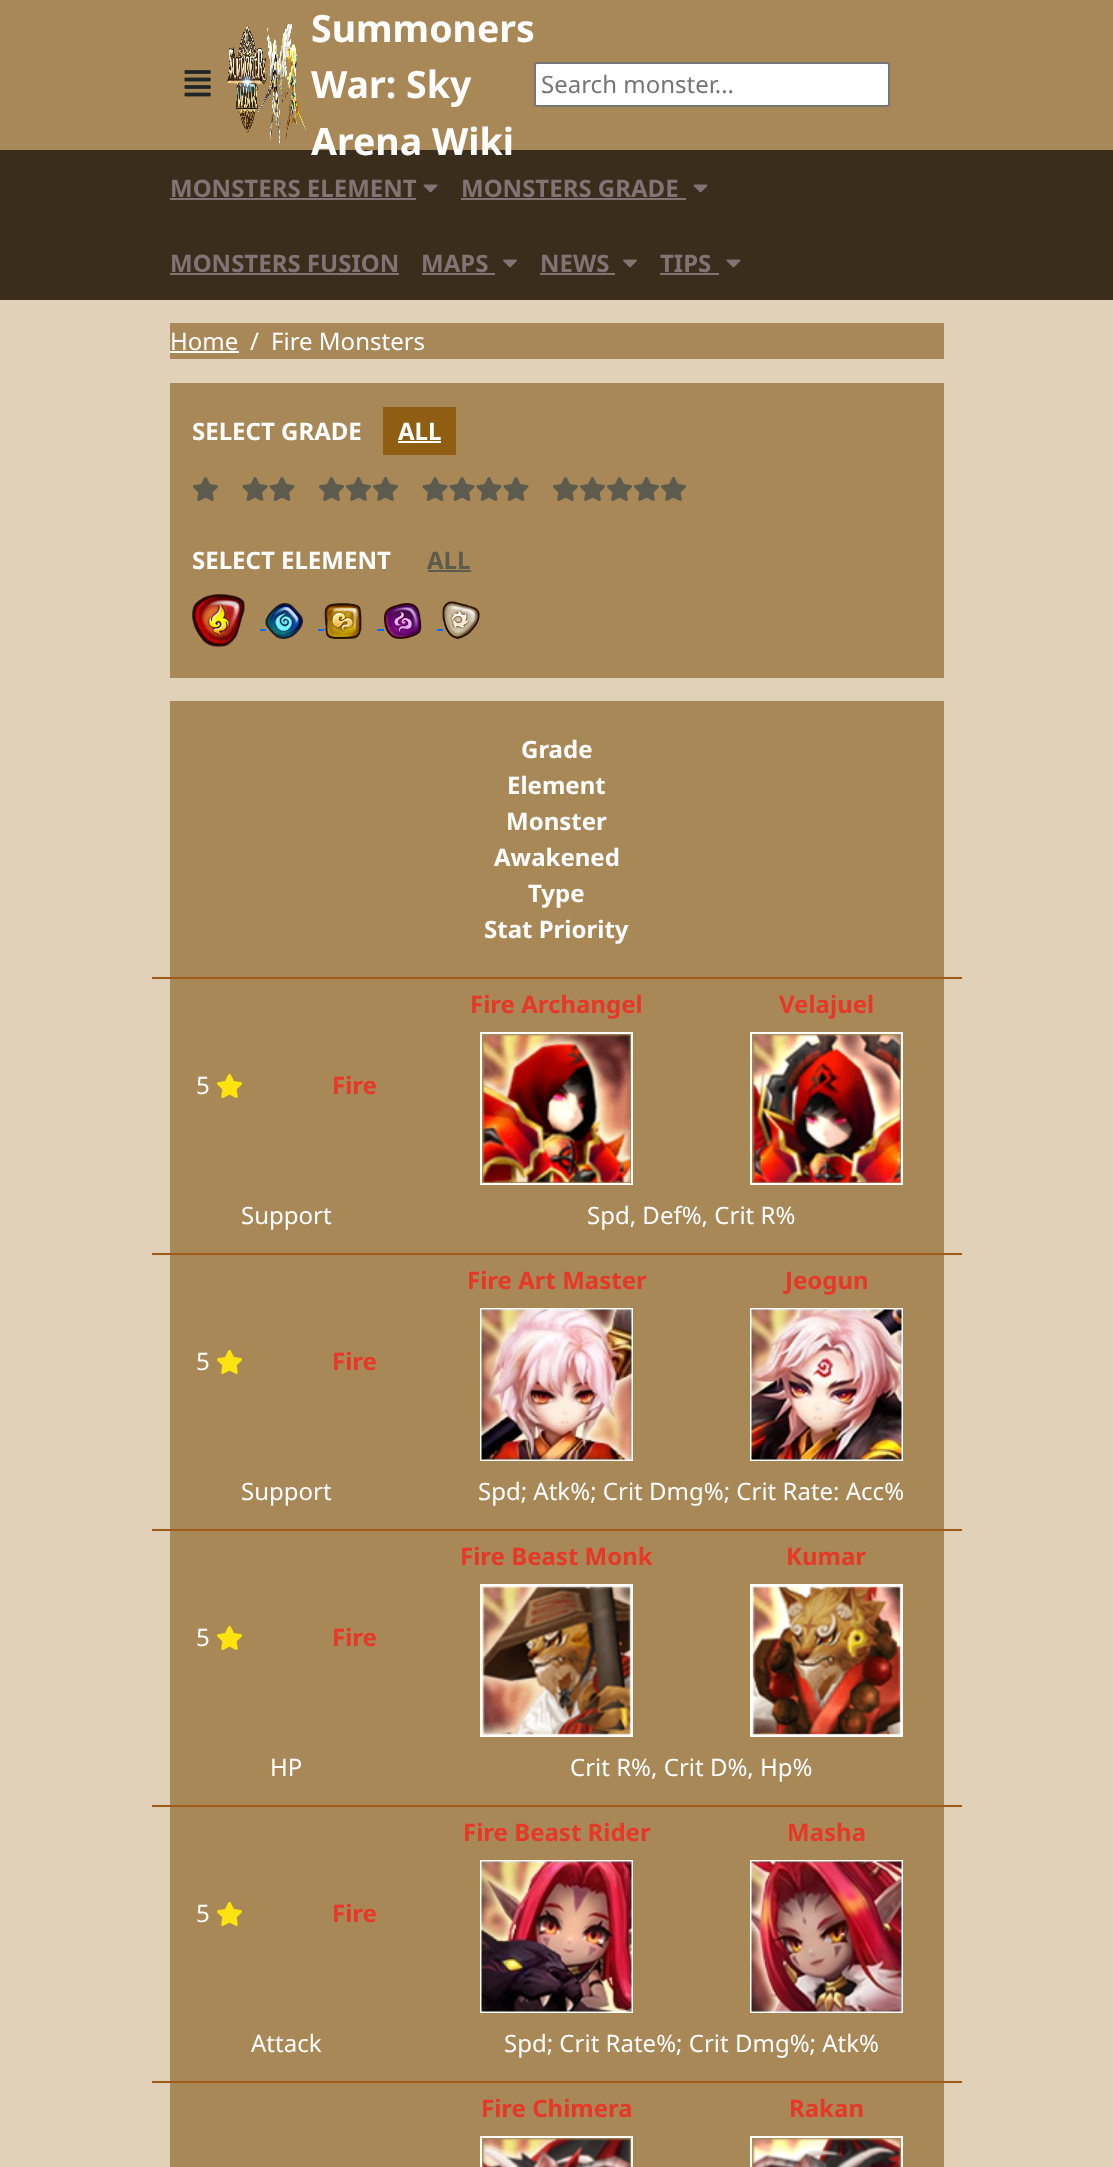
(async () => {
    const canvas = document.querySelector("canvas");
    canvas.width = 1113;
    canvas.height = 2167;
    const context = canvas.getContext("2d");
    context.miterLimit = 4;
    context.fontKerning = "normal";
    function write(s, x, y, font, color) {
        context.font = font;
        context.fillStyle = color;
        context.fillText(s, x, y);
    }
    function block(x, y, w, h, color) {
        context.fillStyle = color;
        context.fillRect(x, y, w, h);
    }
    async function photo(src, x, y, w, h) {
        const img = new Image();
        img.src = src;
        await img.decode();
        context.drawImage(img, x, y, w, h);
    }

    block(0, 0, 1113, 2167, "rgb(225, 209, 185)");
    block(0, 0, 1113, 150, "rgb(169, 136, 88)");
    await photo("media/1.png", 184, 70, 27, 27);
    await photo("media/2.png", 227, 24, 81, 120);
    write("Summoners", 311, 42, "bold 37.5px Noto Sans", "rgb(255, 255, 255)");
    write("War: Sky", 311, 98, "bold 37.5px Noto Sans", "rgb(255, 255, 255)");
    block(0, 150, 1113, 150, "rgb(58, 45, 27)");
    write("Arena Wiki", 311, 155, "bold 37.5px Noto Sans", "rgb(255, 255, 255)");
    context.beginPath();
    context.roundRect(535, 63, 354, 43, 2);
    context.fill();
    context.strokeStyle = "rgb(118, 118, 118)";
    context.lineWidth = 2;
    context.stroke();
    write("Search monster...", 541, 93, "24px Noto Sans", "rgb(117, 117, 117)");
    write("MONSTERS ELEMENT", 170, 197, "bold 24px Noto Sans", "rgb(130, 116, 116)");
    block(170, 198, 246, 2, "rgb(130, 116, 116)");
    await photo("media/3.png", 423, 184, 15, 9);
    write("MONSTERS GRADE", 461, 197, "bold 24px Noto Sans", "rgb(130, 116, 116)");
    block(461, 198, 225, 2, "rgb(130, 116, 116)");
    await photo("media/3.png", 693, 184, 15, 9);
    write("MONSTERS FUSION", 170, 272, "bold 24px Noto Sans", "rgb(130, 116, 116)");
    block(170, 273, 229, 2, "rgb(130, 116, 116)");
    write("MAPS", 421, 272, "bold 24px Noto Sans", "rgb(130, 116, 116)");
    block(422, 273, 73, 2, "rgb(130, 116, 116)");
    await photo("media/4.png", 503, 259, 14, 9);
    write("NEWS", 540, 272, "bold 24px Noto Sans", "rgb(130, 116, 116)");
    block(540, 273, 75, 2, "rgb(130, 116, 116)");
    await photo("media/4.png", 623, 259, 14, 9);
    write("TIPS", 660, 272, "bold 24px Noto Sans", "rgb(130, 116, 116)");
    block(660, 273, 59, 2, "rgb(130, 116, 116)");
    await photo("media/3.png", 726, 259, 15, 9);
    block(170, 323, 774, 36, "rgb(169, 136, 88)");
    write("Home", 170, 350, "24px Noto Sans", "rgb(255, 255, 255)");
    block(170, 351, 69, 2, "rgb(255, 255, 255)");
    write("/", 250, 350, "24px Noto Sans", "rgb(255, 255, 255)");
    write("Fire Monsters", 271, 350, "24px Noto Sans", "rgb(255, 255, 255)");
    block(170, 383, 774, 295, "rgb(169, 136, 88)");
    write("SELECT GRADE", 192, 440, "bold 24px Noto Sans", "rgb(255, 255, 255)");
    block(383, 407, 73, 48, "rgb(144, 94, 18)");
    write("ALL", 398, 440, "bold 24px Noto Sans", "rgb(255, 255, 255)");
    block(398, 441, 43, 2, "rgb(255, 255, 255)");
    await photo("media/5.png", 193, 477, 25, 24);
    await photo("media/6.png", 242, 477, 26, 24);
    await photo("media/6.png", 269, 477, 26, 24);
    await photo("media/5.png", 319, 477, 25, 24);
    await photo("media/5.png", 346, 477, 25, 24);
    await photo("media/5.png", 373, 477, 25, 24);
    await photo("media/6.png", 422, 477, 26, 24);
    await photo("media/6.png", 449, 477, 26, 24);
    await photo("media/6.png", 476, 477, 26, 24);
    await photo("media/6.png", 503, 477, 26, 24);
    await photo("media/5.png", 553, 477, 25, 24);
    await photo("media/5.png", 580, 477, 25, 24);
    await photo("media/5.png", 607, 477, 25, 24);
    await photo("media/5.png", 634, 477, 25, 24);
    await photo("media/5.png", 661, 477, 25, 24);
    write("SELECT ELEMENT", 192, 569, "bold 24px Noto Sans", "rgb(255, 255, 255)");
    write("ALL", 427, 569, "bold 24px Noto Sans", "rgb(93, 91, 78)");
    block(428, 570, 43, 2, "rgb(93, 91, 78)");
    await photo("media/7.png", 192, 594, 53, 53);
    block(260, 629, 6, 2, "rgb(13, 110, 253)");
    await photo("media/8.png", 265, 603, 38, 36);
    block(318, 629, 6, 2, "rgb(13, 110, 253)");
    await photo("media/9.png", 324, 603, 38, 36);
    block(377, 629, 7, 2, "rgb(13, 110, 253)");
    await photo("media/10.png", 384, 603, 38, 36);
    block(437, 629, 6, 2, "rgb(13, 110, 253)");
    await photo("media/11.png", 442, 601, 38, 38);
    block(170, 701, 774, 1466, "rgb(169, 136, 88)");
    block(152, 977, 810, 2, "rgb(158, 91, 24)");
    write("Grade", 521, 758, "bold 24px Noto Sans", "rgb(255, 255, 255)");
    write("Element", 507, 794, "bold 24px Noto Sans", "rgb(255, 255, 255)");
    write("Monster", 506, 830, "bold 24px Noto Sans", "rgb(255, 255, 255)");
    write("Awakened", 494, 866, "bold 24px Noto Sans", "rgb(255, 255, 255)");
    write("Type", 528, 902, "bold 24px Noto Sans", "rgb(255, 255, 255)");
    write("Stat Priority", 484, 938, "bold 24px Noto Sans", "rgb(255, 255, 255)");
    block(152, 1253, 810, 2, "rgb(158, 91, 24)");
    write("Fire Archangel", 470, 1013, "bold 24px Noto Sans", "rgb(231, 56, 39)");
    context.strokeStyle = "rgb(255, 255, 255)";
    context.strokeRect(481, 1033, 151, 151);
    await photo("media/12.png", 482, 1033, 150, 151);
    write("Velajuel", 779, 1013, "bold 24px Noto Sans", "rgb(231, 56, 39)");
    context.strokeRect(751, 1033, 151, 151);
    await photo("media/13.png", 752, 1033, 150, 151);
    write("5", 196, 1094, "24px Noto Sans", "rgb(255, 255, 255)");
    await photo("media/14.png", 217, 1074, 25, 24);
    write("Fire", 332, 1094, "bold 24px Noto Sans", "rgb(231, 56, 39)");
    write("Support", 241, 1224, "24px Noto Sans", "rgb(255, 255, 255)");
    write("Spd, Def%, Crit R%", 587, 1224, "24px Noto Sans", "rgb(255, 255, 255)");
    block(152, 1529, 810, 2, "rgb(158, 91, 24)");
    write("Fire Art Master", 467, 1289, "bold 24px Noto Sans", "rgb(231, 56, 39)");
    context.strokeRect(481, 1309, 151, 151);
    await photo("media/15.png", 481, 1309, 151, 151);
    write("Jeogun", 785, 1289, "bold 24px Noto Sans", "rgb(231, 56, 39)");
    context.strokeRect(751, 1309, 151, 151);
    await photo("media/16.png", 751, 1309, 151, 151);
    write("5", 196, 1370, "24px Noto Sans", "rgb(255, 255, 255)");
    await photo("media/14.png", 217, 1350, 25, 24);
    write("Fire", 332, 1370, "bold 24px Noto Sans", "rgb(231, 56, 39)");
    write("Support", 241, 1500, "24px Noto Sans", "rgb(255, 255, 255)");
    write("Spd; Atk%; Crit Dmg%; Crit Rate: Acc%", 478, 1500, "24px Noto Sans", "rgb(255, 255, 255)");
    block(152, 1805, 810, 2, "rgb(158, 91, 24)");
    write("Fire Beast Monk", 460, 1565, "bold 24px Noto Sans", "rgb(231, 56, 39)");
    context.strokeRect(481, 1585, 151, 151);
    await photo("media/17.png", 481, 1585, 151, 151);
    write("Kumar", 786, 1565, "bold 24px Noto Sans", "rgb(231, 56, 39)");
    context.strokeRect(751, 1585, 151, 151);
    await photo("media/18.png", 752, 1586, 149, 149);
    write("5", 196, 1646, "24px Noto Sans", "rgb(255, 255, 255)");
    await photo("media/14.png", 217, 1626, 25, 24);
    write("Fire", 332, 1646, "bold 24px Noto Sans", "rgb(231, 56, 39)");
    write("HP", 270, 1776, "24px Noto Sans", "rgb(255, 255, 255)");
    write("Crit R%, Crit D%, Hp%", 570, 1776, "24px Noto Sans", "rgb(255, 255, 255)");
    block(152, 2081, 810, 2, "rgb(158, 91, 24)");
    write("Fire Beast Rider", 463, 1841, "bold 24px Noto Sans", "rgb(231, 56, 39)");
    context.strokeRect(481, 1861, 151, 151);
    await photo("media/19.png", 481, 1861, 151, 151);
    write("Masha", 787, 1841, "bold 24px Noto Sans", "rgb(231, 56, 39)");
    context.strokeRect(751, 1861, 151, 151);
    await photo("media/20.png", 751, 1861, 151, 151);
    write("5", 196, 1922, "24px Noto Sans", "rgb(255, 255, 255)");
    await photo("media/14.png", 217, 1902, 25, 24);
    write("Fire", 332, 1922, "bold 24px Noto Sans", "rgb(231, 56, 39)");
    write("Attack", 251, 2052, "24px Noto Sans", "rgb(255, 255, 255)");
    write("Spd; Crit Rate%; Crit Dmg%; Atk%", 504, 2052, "24px Noto Sans", "rgb(255, 255, 255)");
    write("Fire Chimera", 481, 2117, "bold 24px Noto Sans", "rgb(231, 56, 39)");
    context.strokeRect(481, 2137, 151, 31);
    await photo("media/21.png", 481, 2137, 151, 30);
    write("Rakan", 789, 2117, "bold 24px Noto Sans", "rgb(231, 56, 39)");
    context.strokeRect(751, 2137, 151, 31);
    await photo("media/22.png", 751, 2137, 151, 30);
})();
